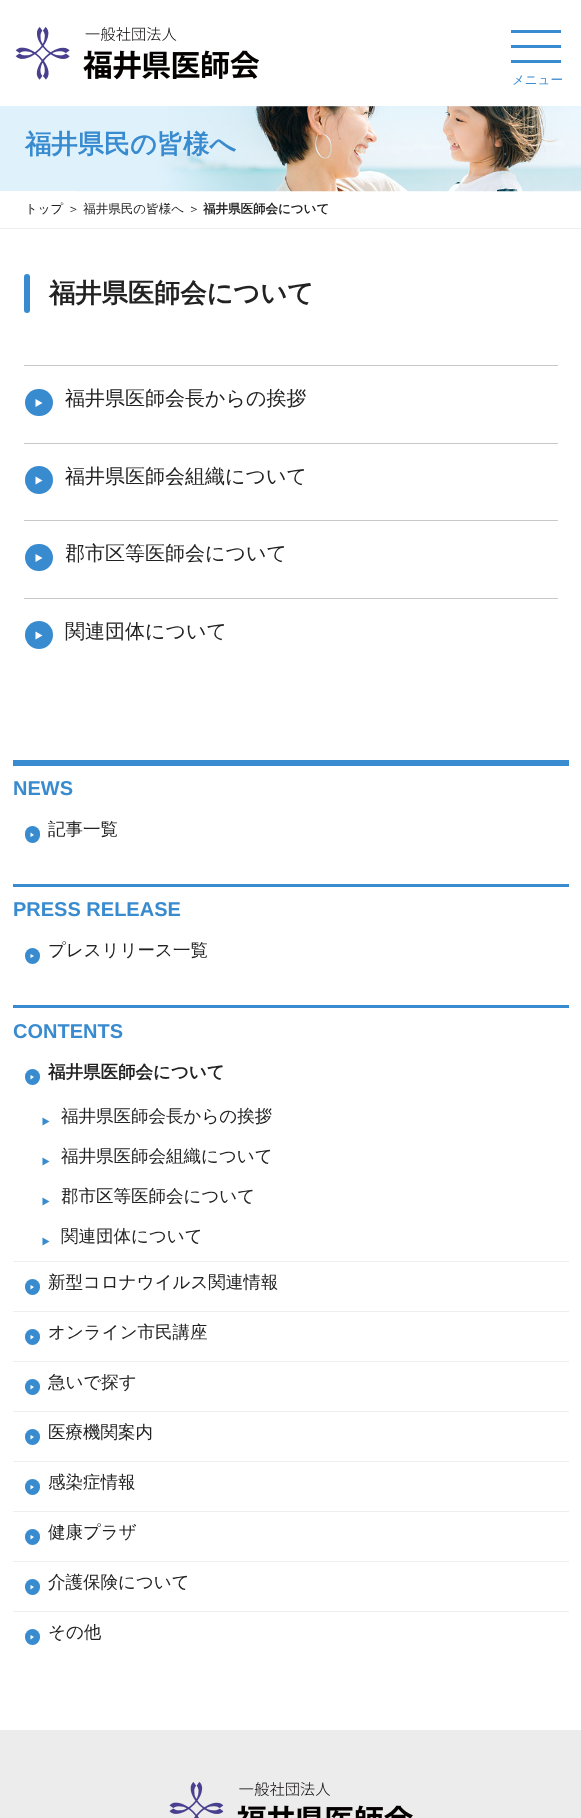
(async () => {
    const canvas = document.querySelector("canvas");
    canvas.width = 581;
    canvas.height = 1818;
    const context = canvas.getContext("2d");
    context.miterLimit = 4;
    context.fontKerning = "normal";
    function write(s, x, y, font, color) {
        context.font = font;
        context.fillStyle = color;
        context.fillText(s, x, y);
    }
    function block(x, y, w, h, color) {
        context.fillStyle = color;
        context.fillRect(x, y, w, h);
    }
    function card(x, y, w, h, r, color) {
        context.fillStyle = color;
        context.beginPath();
        context.roundRect(x, y, w, h, r);
        context.fill();
    }
    async function photo(src, x, y, w, h) {
        const img = new Image();
        img.src = src;
        await img.decode();
        context.drawImage(img, x, y, w, h);
    }

    block(0, 0, 581, 1818, "rgb(255, 255, 255)");
    await photo("media/1.png", 15, 27, 245, 53);
    block(511, 30, 50, 3, "rgb(57, 139, 208)");
    block(511, 45, 50, 3, "rgb(57, 139, 208)");
    block(511, 60, 50, 3, "rgb(57, 139, 208)");
    write("メニュー", 512, 84, "500 12.5px WenQuanYi Zen Hei", "rgb(57, 139, 208)");
    block(0, 106, 581, 85, "rgb(223, 242, 252)");
    await photo("media/2.png", 75, 106, 506, 86);
    write("福井県民の皆様へ", 25, 153, "bold 26.25px WenQuanYi Zen Hei", "rgb(57, 139, 208)");
    block(0, 228, 581, 1, "rgb(238, 238, 238)");
    write("トップ ＞ 福井県民の皆様へ ＞", 25, 213, "500 12.5px WenQuanYi Zen Hei", "rgb(34, 34, 34)");
    write("福井県医師会について", 203, 213, "bold 12.5px WenQuanYi Zen Hei", "rgb(34, 34, 34)");
    card(24, 274, 6, 39, 3, "rgb(57, 139, 208)");
    write("福井県医師会について", 49, 302, "bold 26.25px WenQuanYi Zen Hei", "rgb(34, 34, 34)");
    block(24, 365, 534, 1, "rgb(200, 200, 200)");
    card(25, 389, 28, 27, 13.5, "rgb(57, 139, 208)");
    context.fillStyle = "rgb(255, 255, 255)";
    context.beginPath();
    context.moveTo(35.5, 399);
    context.lineTo(42.5, 403);
    context.lineTo(35.5, 407);
    context.closePath();
    context.fill();
    write("福井県医師会長からの挨拶", 65, 405, "500 20px WenQuanYi Zen Hei", "rgb(34, 34, 34)");
    block(24, 443, 534, 1, "rgb(200, 200, 200)");
    context.fillStyle = "rgb(57, 139, 208)";
    context.beginPath();
    context.arc(39, 480, 14, 0, Math.PI * 2);
    context.fill();
    context.fillStyle = "rgb(255, 255, 255)";
    context.beginPath();
    context.moveTo(35.5, 476.5);
    context.lineTo(42.5, 480.5);
    context.lineTo(35.5, 484.5);
    context.closePath();
    context.fill();
    write("福井県医師会組織について", 65, 483, "500 20px WenQuanYi Zen Hei", "rgb(34, 34, 34)");
    block(24, 520, 534, 1, "rgb(200, 200, 200)");
    card(25, 544, 28, 27, 13.5, "rgb(57, 139, 208)");
    context.fillStyle = "rgb(255, 255, 255)";
    context.beginPath();
    context.moveTo(35.5, 554);
    context.lineTo(42.5, 558);
    context.lineTo(35.5, 562);
    context.closePath();
    context.fill();
    write("郡市区等医師会について", 65, 560, "500 20px WenQuanYi Zen Hei", "rgb(34, 34, 34)");
    block(24, 598, 534, 1, "rgb(200, 200, 200)");
    context.fillStyle = "rgb(57, 139, 208)";
    context.beginPath();
    context.arc(39, 635, 14, 0, Math.PI * 2);
    context.fill();
    context.fillStyle = "rgb(255, 255, 255)";
    context.beginPath();
    context.moveTo(35.5, 631.5);
    context.lineTo(42.5, 635.5);
    context.lineTo(35.5, 639.5);
    context.closePath();
    context.fill();
    write("関連団体について", 65, 638, "500 20px WenQuanYi Zen Hei", "rgb(34, 34, 34)");
    block(13, 760, 556, 6, "rgb(57, 139, 208)");
    write("NEWS", 13, 795, "bold 20px Liberation Sans", "rgb(57, 139, 208)");
    card(25, 826, 15, 17, 7.5, "rgb(57, 139, 208)");
    context.fillStyle = "rgb(255, 255, 255)";
    context.beginPath();
    context.moveTo(30.5, 832.5);
    context.lineTo(34, 835);
    context.lineTo(30.5, 837);
    context.closePath();
    context.fill();
    write("記事一覧", 48, 835, "500 17.5px WenQuanYi Zen Hei", "rgb(34, 34, 34)");
    block(13, 884, 556, 3, "rgb(57, 139, 208)");
    write("PRESS RELEASE", 13, 916, "bold 20px Liberation Sans", "rgb(57, 139, 208)");
    card(25, 948, 15, 16, 7.5, "rgb(57, 139, 208)");
    context.fillStyle = "rgb(255, 255, 255)";
    context.beginPath();
    context.moveTo(30.5, 954);
    context.lineTo(34, 956);
    context.lineTo(30.5, 958);
    context.closePath();
    context.fill();
    write("プレスリリース一覧", 48, 956, "500 17.5px WenQuanYi Zen Hei", "rgb(34, 34, 34)");
    block(13, 1005, 556, 3, "rgb(57, 139, 208)");
    write("CONTENTS", 13, 1038, "bold 20px Liberation Sans", "rgb(57, 139, 208)");
    card(25, 1069, 15, 16, 7.5, "rgb(57, 139, 208)");
    context.fillStyle = "rgb(255, 255, 255)";
    context.beginPath();
    context.moveTo(30.5, 1075);
    context.lineTo(34, 1077);
    context.lineTo(30.5, 1079.5);
    context.closePath();
    context.fill();
    write("福井県医師会について", 48, 1078, "bold 17.5px WenQuanYi Zen Hei", "rgb(34, 34, 34)");
    context.fillStyle = "rgb(57, 139, 208)";
    context.beginPath();
    context.moveTo(42.5, 1117.5);
    context.lineTo(49.5, 1121.5);
    context.lineTo(42.5, 1125.5);
    context.closePath();
    context.fill();
    write("福井県医師会長からの挨拶", 61, 1122, "500 17.5px WenQuanYi Zen Hei", "rgb(34, 34, 34)");
    context.fillStyle = "rgb(57, 139, 208)";
    context.beginPath();
    context.moveTo(42.5, 1157.5);
    context.lineTo(49.5, 1161.5);
    context.lineTo(42.5, 1165.5);
    context.closePath();
    context.fill();
    write("福井県医師会組織について", 61, 1162, "500 17.5px WenQuanYi Zen Hei", "rgb(34, 34, 34)");
    context.fillStyle = "rgb(57, 139, 208)";
    context.beginPath();
    context.moveTo(42.5, 1197.5);
    context.lineTo(49.5, 1201.5);
    context.lineTo(42.5, 1205.5);
    context.closePath();
    context.fill();
    write("郡市区等医師会について", 61, 1202, "500 17.5px WenQuanYi Zen Hei", "rgb(34, 34, 34)");
    context.fillStyle = "rgb(57, 139, 208)";
    context.beginPath();
    context.moveTo(42.5, 1237.5);
    context.lineTo(49.5, 1241.5);
    context.lineTo(42.5, 1245.5);
    context.closePath();
    context.fill();
    write("関連団体について", 61, 1242, "500 17.5px WenQuanYi Zen Hei", "rgb(34, 34, 34)");
    block(13, 1261, 556, 1, "rgb(238, 238, 238)");
    card(25, 1279, 15, 16, 7.5, "rgb(57, 139, 208)");
    context.fillStyle = "rgb(255, 255, 255)";
    context.beginPath();
    context.moveTo(30.5, 1285);
    context.lineTo(34, 1287);
    context.lineTo(30.5, 1289.5);
    context.closePath();
    context.fill();
    write("新型コロナウイルス関連情報", 48, 1288, "500 17.5px WenQuanYi Zen Hei", "rgb(34, 34, 34)");
    block(13, 1311, 556, 1, "rgb(238, 238, 238)");
    card(25, 1329, 15, 16, 7.5, "rgb(57, 139, 208)");
    context.fillStyle = "rgb(255, 255, 255)";
    context.beginPath();
    context.moveTo(30.5, 1335);
    context.lineTo(34, 1337);
    context.lineTo(30.5, 1339.5);
    context.closePath();
    context.fill();
    write("オンライン市民講座", 48, 1338, "500 17.5px WenQuanYi Zen Hei", "rgb(34, 34, 34)");
    block(13, 1361, 556, 1, "rgb(238, 238, 238)");
    card(25, 1379, 15, 16, 7.5, "rgb(57, 139, 208)");
    context.fillStyle = "rgb(255, 255, 255)";
    context.beginPath();
    context.moveTo(30.5, 1385);
    context.lineTo(34, 1387);
    context.lineTo(30.5, 1389.5);
    context.closePath();
    context.fill();
    write("急いで探す", 48, 1388, "500 17.5px WenQuanYi Zen Hei", "rgb(34, 34, 34)");
    block(13, 1411, 556, 1, "rgb(238, 238, 238)");
    card(25, 1429, 15, 16, 7.5, "rgb(57, 139, 208)");
    context.fillStyle = "rgb(255, 255, 255)";
    context.beginPath();
    context.moveTo(30.5, 1435);
    context.lineTo(34, 1437);
    context.lineTo(30.5, 1439.5);
    context.closePath();
    context.fill();
    write("医療機関案内", 48, 1438, "500 17.5px WenQuanYi Zen Hei", "rgb(34, 34, 34)");
    block(13, 1461, 556, 1, "rgb(238, 238, 238)");
    card(25, 1479, 15, 16, 7.5, "rgb(57, 139, 208)");
    context.fillStyle = "rgb(255, 255, 255)";
    context.beginPath();
    context.moveTo(30.5, 1485);
    context.lineTo(34, 1487);
    context.lineTo(30.5, 1489.5);
    context.closePath();
    context.fill();
    write("感染症情報", 48, 1488, "500 17.5px WenQuanYi Zen Hei", "rgb(34, 34, 34)");
    block(13, 1511, 556, 1, "rgb(238, 238, 238)");
    card(25, 1529, 15, 16, 7.5, "rgb(57, 139, 208)");
    context.fillStyle = "rgb(255, 255, 255)";
    context.beginPath();
    context.moveTo(30.5, 1535);
    context.lineTo(34, 1537);
    context.lineTo(30.5, 1539.5);
    context.closePath();
    context.fill();
    write("健康プラザ", 48, 1538, "500 17.5px WenQuanYi Zen Hei", "rgb(34, 34, 34)");
    block(13, 1561, 556, 1, "rgb(238, 238, 238)");
    card(25, 1579, 15, 16, 7.5, "rgb(57, 139, 208)");
    context.fillStyle = "rgb(255, 255, 255)";
    context.beginPath();
    context.moveTo(30.5, 1585);
    context.lineTo(34, 1587);
    context.lineTo(30.5, 1589.5);
    context.closePath();
    context.fill();
    write("介護保険について", 48, 1588, "500 17.5px WenQuanYi Zen Hei", "rgb(34, 34, 34)");
    block(13, 1611, 556, 1, "rgb(238, 238, 238)");
    card(25, 1629, 15, 16, 7.5, "rgb(57, 139, 208)");
    context.fillStyle = "rgb(255, 255, 255)";
    context.beginPath();
    context.moveTo(30.5, 1635);
    context.lineTo(34, 1637);
    context.lineTo(30.5, 1639.5);
    context.closePath();
    context.fill();
    write("その他", 48, 1638, "500 17.5px WenQuanYi Zen Hei", "rgb(34, 34, 34)");
    block(0, 1730, 581, 88, "rgb(236, 236, 236)");
    await photo("media/3.png", 169, 1782, 244, 36);
})();
